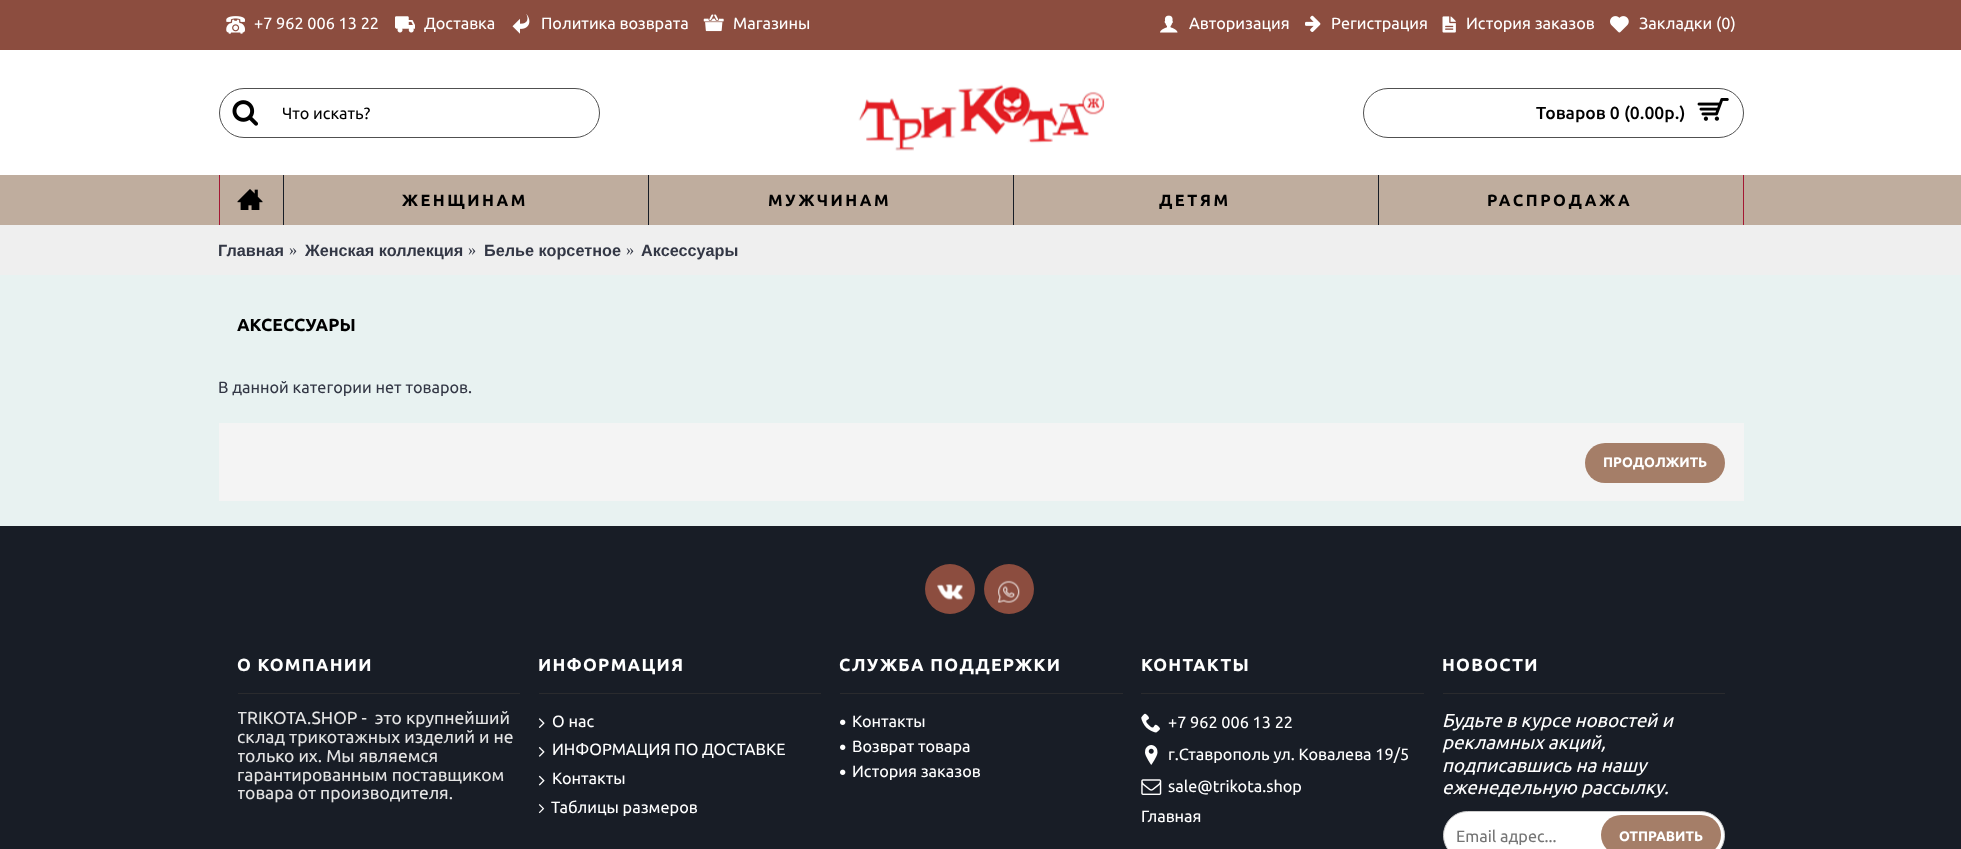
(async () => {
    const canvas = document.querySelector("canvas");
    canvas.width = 1961;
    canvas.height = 849;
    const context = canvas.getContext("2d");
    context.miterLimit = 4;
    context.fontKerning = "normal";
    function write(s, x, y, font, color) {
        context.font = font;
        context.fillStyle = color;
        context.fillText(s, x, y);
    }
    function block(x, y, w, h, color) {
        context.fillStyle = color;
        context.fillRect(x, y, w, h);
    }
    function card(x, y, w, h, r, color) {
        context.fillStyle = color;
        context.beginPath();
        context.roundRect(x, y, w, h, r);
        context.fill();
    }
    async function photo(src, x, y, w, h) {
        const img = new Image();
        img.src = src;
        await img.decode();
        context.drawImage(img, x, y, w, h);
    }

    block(0, 0, 1961, 849, "rgb(232, 242, 241)");
    block(0, 50, 1961, 125, "rgb(255, 255, 255)");
    block(0, 0, 1961, 50, "rgb(140, 77, 63)");
    await photo("media/1.png", 226, 16, 19, 18);
    write("+7 962 006 13 22", 254, 29, "16.25px Ubuntu", "rgb(255, 255, 255)");
    await photo("media/2.png", 395, 16, 20, 17);
    write("Доставка", 424, 29, "16.25px Ubuntu", "rgb(255, 255, 255)");
    await photo("media/3.png", 512, 14, 18, 20);
    write("Политика возврата", 541, 29, "16.25px Ubuntu", "rgb(255, 255, 255)");
    await photo("media/4.png", 703, 14, 21, 18);
    write("Магазины", 733, 29, "16.25px Ubuntu", "rgb(255, 255, 255)");
    await photo("media/5.png", 1160, 15, 18, 18);
    write("Авторизация", 1189, 29, "16.25px Ubuntu", "rgb(255, 255, 255)");
    await photo("media/6.png", 1305, 15, 16, 17);
    write("Регистрация", 1331, 29, "16.25px Ubuntu", "rgb(255, 255, 255)");
    await photo("media/7.png", 1442, 16, 14, 17);
    write("История заказов", 1466, 29, "16.25px Ubuntu", "rgb(255, 255, 255)");
    await photo("media/8.png", 1610, 16, 19, 17);
    write("Закладки (0)", 1639, 29, "16.25px Ubuntu", "rgb(255, 255, 255)");
    context.beginPath();
    context.roundRect(219.5, 88.5, 380, 49, 24.5);
    context.strokeStyle = "rgb(80, 80, 80)";
    context.stroke();
    await photo("media/9.png", 232, 100, 26, 26);
    context.save();
    context.beginPath();
    context.rect(283, 104, 316, 17);
    context.clip();
    write("Что искать?", 282, 119, "16.25px Ubuntu", "rgb(0, 0, 0)");
    context.restore();
    await photo("media/10.png", 858, 84, 247, 67);
    context.beginPath();
    context.roundRect(1363.5, 88.5, 380, 49, 24.5);
    context.stroke();
    write("Товаров 0 (0.00р.)", 1536, 119, "500 17.5px Ubuntu", "rgb(0, 0, 0)");
    await photo("media/11.png", 1697, 98, 32, 23);
    block(0, 175, 1961, 50, "rgb(191, 173, 158)");
    block(1743, 175, 1, 50, "rgb(164, 23, 51)");
    block(219, 175, 1, 50, "rgb(164, 23, 51)");
    await photo("media/12.png", 237, 189, 26, 21);
    block(283, 175, 1, 50, "rgb(24, 29, 38)");
    context.letterSpacing = "2.5px";
    write("ЖЕНЩИНАМ", 402, 206, "bold 16.25px Ubuntu", "rgb(0, 0, 0)");
    block(648, 175, 1, 50, "rgb(24, 29, 38)");
    write("МУЖЧИНАМ", 768, 206, "bold 16.25px Ubuntu", "rgb(0, 0, 0)");
    block(1013, 175, 1, 50, "rgb(24, 29, 38)");
    write("ДЕТЯМ", 1159, 206, "bold 16.25px Ubuntu", "rgb(0, 0, 0)");
    block(1378, 175, 1, 50, "rgb(24, 29, 38)");
    write("РАСПРОДАЖА", 1487, 206, "bold 16.25px Ubuntu", "rgb(0, 0, 0)");
    block(0, 225, 1961, 50, "rgb(239, 239, 239)");
    context.letterSpacing = "0px";
    write("Главная", 218, 256, "bold 16.25px Liberation Sans", "rgb(51, 55, 69)");
    write("»", 289, 255, "16.25px Liberation Serif", "rgb(51, 55, 69)");
    write("Женская коллекция", 305, 256, "bold 16.25px Liberation Sans", "rgb(51, 55, 69)");
    write("»", 468, 255, "16.25px Liberation Serif", "rgb(51, 55, 69)");
    write("Белье корсетное", 484, 256, "bold 16.25px Liberation Sans", "rgb(51, 55, 69)");
    write("»", 626, 255, "16.25px Liberation Serif", "rgb(51, 55, 69)");
    write("Аксессуары", 641, 256, "bold 16.25px Liberation Sans", "rgb(51, 55, 69)");
    write("АКСЕССУАРЫ", 237, 331, "bold 17.5px Ubuntu", "rgb(0, 0, 0)");
    write("В данной категории нет товаров.", 218, 393, "16.25px Ubuntu", "rgb(51, 55, 69)");
    block(219, 423, 1525, 78, "rgb(244, 244, 244)");
    card(1585, 443, 140, 40, 20, "rgb(165, 126, 104)");
    write("ПРОДОЛЖИТЬ", 1603, 467, "bold 13.75px Ubuntu", "rgb(255, 255, 255)");
    block(0, 526, 1961, 323, "rgb(24, 29, 38)");
    context.fillStyle = "rgb(140, 77, 63)";
    context.beginPath();
    context.arc(950, 589, 25, 0, Math.PI * 2);
    context.fill();
    await photo("media/13.png", 937, 584, 26, 16);
    context.beginPath();
    context.arc(1009, 589, 25, 0, Math.PI * 2);
    context.fill();
    await photo("media/14.png", 998, 580, 22, 23);
    block(238, 693, 282, 1, "rgb(42, 43, 46)");
    context.letterSpacing = "1.25px";
    write("О КОМПАНИИ", 237, 671, "bold 17.5px Ubuntu", "rgb(255, 255, 255)");
    context.save();
    context.beginPath();
    context.rect(238, 709, 282, 94);
    context.clip();
    context.letterSpacing = "0px";
    write("TRIKOTA.SHOP -  это крупнейший", 237, 724, "17.5px Ubuntu", "rgb(228, 228, 228)");
    write("склад трикотажных изделий и не", 237, 743, "17.5px Ubuntu", "rgb(228, 228, 228)");
    write("только их. Мы являемся", 237, 762, "17.5px Ubuntu", "rgb(228, 228, 228)");
    context.restore();
    context.letterSpacing = "0px";
    write("гарантированным поставщиком", 237, 781, "17.5px Ubuntu", "rgb(228, 228, 228)");
    context.save();
    context.beginPath();
    context.rect(238, 709, 282, 94);
    context.clip();
    write("товара от производителя.", 237, 799, "17.5px Ubuntu", "rgb(228, 228, 228)");
    context.restore();
    block(539, 693, 282, 1, "rgb(42, 43, 46)");
    context.letterSpacing = "1.25px";
    write("ИНФОРМАЦИЯ", 538, 671, "bold 17.5px Ubuntu", "rgb(255, 255, 255)");
    await photo("media/15.png", 538, 718, 7, 10);
    context.letterSpacing = "0px";
    write("О нас", 552, 727, "16.25px Ubuntu", "rgb(255, 255, 255)");
    await photo("media/16.png", 538, 747, 7, 10);
    write("ИНФОРМАЦИЯ ПО ДОСТАВКЕ", 552, 755, "16.25px Ubuntu", "rgb(255, 255, 255)");
    await photo("media/17.png", 538, 775, 7, 11);
    write("Контакты", 552, 784, "16.25px Ubuntu", "rgb(255, 255, 255)");
    await photo("media/18.png", 538, 804, 7, 10);
    write("Таблицы размеров", 551, 813, "16.25px Ubuntu", "rgb(255, 255, 255)");
    block(840, 693, 283, 1, "rgb(42, 43, 46)");
    context.letterSpacing = "1.25px";
    write("СЛУЖБА ПОДДЕРЖКИ", 839, 671, "bold 17.5px Ubuntu", "rgb(255, 255, 255)");
    await photo("media/19.png", 840, 719, 6, 6);
    context.letterSpacing = "0px";
    write("Контакты", 852, 727, "16.25px Ubuntu", "rgb(255, 255, 255)");
    await photo("media/19.png", 840, 744, 6, 6);
    write("Возврат товара", 852, 752, "16.25px Ubuntu", "rgb(255, 255, 255)");
    await photo("media/19.png", 840, 769, 6, 6);
    write("История заказов", 852, 777, "16.25px Ubuntu", "rgb(255, 255, 255)");
    block(1141, 693, 283, 1, "rgb(42, 43, 46)");
    context.letterSpacing = "1.25px";
    write("КОНТАКТЫ", 1141, 671, "bold 17.5px Ubuntu", "rgb(255, 255, 255)");
    await photo("media/20.png", 1141, 713, 19, 20);
    context.letterSpacing = "0px";
    write("+7 962 006 13 22", 1168, 728, "16.25px Ubuntu", "rgb(255, 255, 255)");
    await photo("media/21.png", 1145, 745, 13, 20);
    write("г.Ставрополь ул. Ковалева 19/5", 1168, 760, "16.25px Ubuntu", "rgb(255, 255, 255)");
    await photo("media/22.png", 1141, 779, 21, 16);
    write("sale@trikota.shop", 1168, 792, "16.25px Ubuntu", "rgb(255, 255, 255)");
    write("Главная", 1141, 822, "16.25px Ubuntu", "rgb(255, 255, 255)");
    block(1443, 693, 282, 1, "rgb(42, 43, 46)");
    context.letterSpacing = "1.25px";
    write("НОВОСТИ", 1442, 671, "bold 17.5px Ubuntu", "rgb(255, 255, 255)");
    context.letterSpacing = "0px";
    write("Будьте в курсе новостей и", 1442, 727, "italic 18.75px Ubuntu", "rgb(255, 255, 255)");
    write("рекламных акций,", 1442, 749, "italic 18.75px Ubuntu", "rgb(255, 255, 255)");
    write("подписавшись на нашу", 1442, 772, "italic 18.75px Ubuntu", "rgb(255, 255, 255)");
    write("еженедельную рассылку.", 1442, 794, "italic 18.75px Ubuntu", "rgb(255, 255, 255)");
    context.beginPath();
    context.roundRect(1443.5, 811.5, 281, 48, 24);
    context.fill();
    context.strokeStyle = "rgb(204, 204, 204)";
    context.stroke();
    write("Email адрес...", 1456, 842, "16.25px Ubuntu", "rgb(117, 117, 117)");
    card(1601, 815, 120, 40, 20, "rgb(165, 126, 104)");
    write("ОТПРАВИТЬ", 1619, 841, "bold 13.75px Ubuntu", "rgb(255, 255, 255)");
})();
